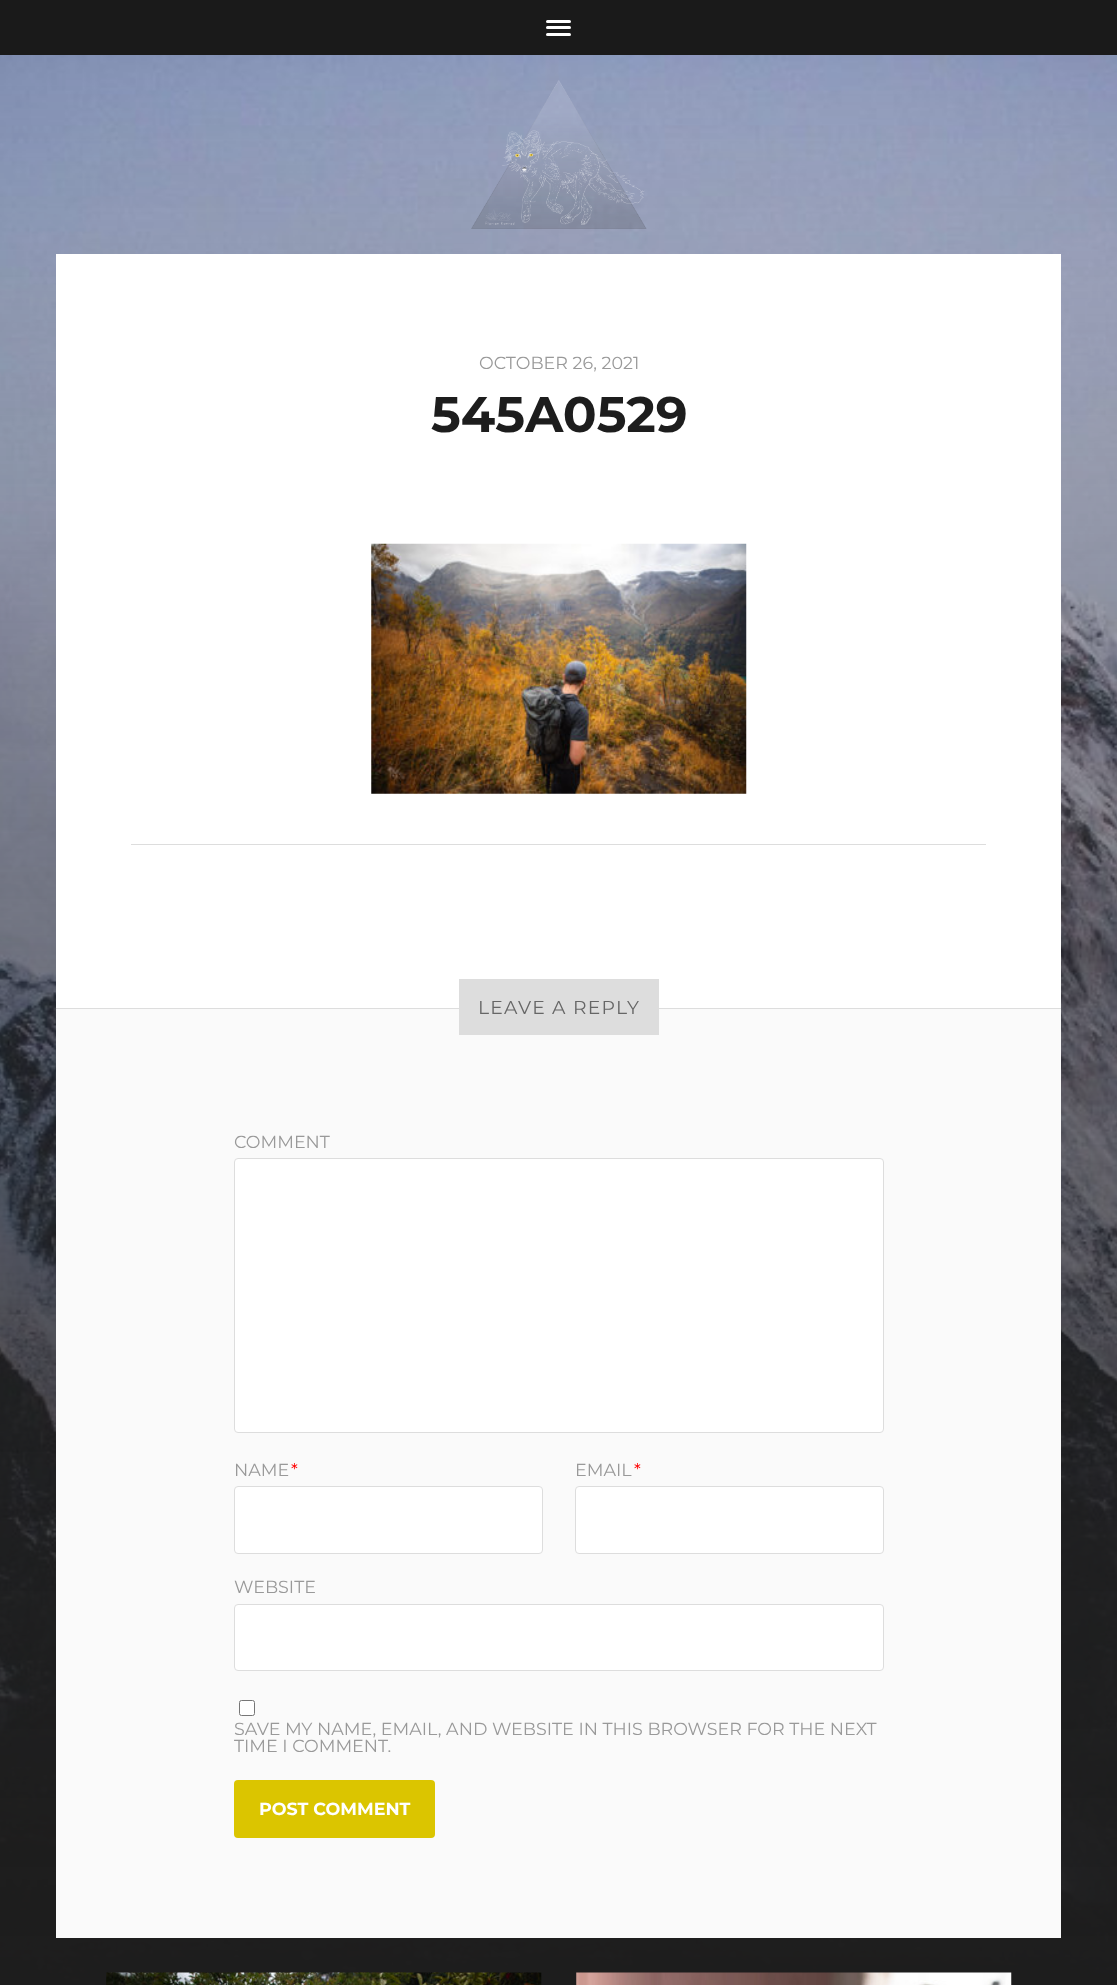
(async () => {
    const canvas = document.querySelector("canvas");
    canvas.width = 1117;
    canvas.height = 1985;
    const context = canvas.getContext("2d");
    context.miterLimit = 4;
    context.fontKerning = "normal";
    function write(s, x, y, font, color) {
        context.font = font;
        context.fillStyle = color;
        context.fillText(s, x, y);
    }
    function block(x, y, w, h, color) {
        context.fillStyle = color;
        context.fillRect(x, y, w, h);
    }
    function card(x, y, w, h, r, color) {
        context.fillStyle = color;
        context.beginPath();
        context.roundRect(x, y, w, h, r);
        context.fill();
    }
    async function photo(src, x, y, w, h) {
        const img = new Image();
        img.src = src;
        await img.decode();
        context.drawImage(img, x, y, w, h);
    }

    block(0, 0, 1117, 1985, "rgb(255, 255, 255)");
    block(0, 0, 1117, 55, "rgb(26, 26, 26)");
    card(546, 20, 25, 3, 1.5, "rgb(255, 255, 255)");
    card(546, 26, 25, 3, 1.5, "rgb(255, 255, 255)");
    card(546, 33, 25, 3, 1.5, "rgb(255, 255, 255)");
    await photo("media/1.png", 0, 55, 1117, 1930);
    await photo("media/2.png", 471, 80, 176, 149);
    block(56, 254, 1005, 754, "rgb(255, 255, 255)");
    write("OCTOBER 26, 2021", 479, 369, "17.5px Montserrat", "rgb(153, 153, 153)");
    write("545A0529", 431, 432, "bold 50px Montserrat", "rgb(29, 29, 29)");
    await photo("media/3.png", 371, 543, 376, 251);
    block(131, 844, 855, 1, "rgb(221, 221, 221)");
    block(56, 1009, 1005, 929, "rgb(250, 250, 250)");
    block(56, 1008, 1005, 1, "rgb(221, 221, 221)");
    block(459, 979, 200, 56, "rgb(221, 221, 221)");
    context.letterSpacing = "1.25px";
    write("LEAVE A REPLY", 478, 1014, "18.75px Montserrat", "rgb(102, 102, 102)");
    context.letterSpacing = "0px";
    write("COMMENT", 234, 1148, "17.5px Montserrat", "rgb(153, 153, 153)");
    context.fillStyle = "rgb(255, 255, 255)";
    context.beginPath();
    context.roundRect(234.5, 1158.5, 649, 274, 3.5);
    context.fill();
    context.strokeStyle = "rgb(221, 221, 221)";
    context.stroke();
    write("NAME", 234, 1476, "17.5px Montserrat", "rgb(153, 153, 153)");
    write("*", 291, 1476, "17.5px Montserrat", "rgb(255, 0, 0)");
    context.fillStyle = "rgb(255, 255, 255)";
    context.beginPath();
    context.roundRect(234.5, 1486.5, 308, 67, 3.5);
    context.fill();
    context.stroke();
    write("EMAIL", 575, 1476, "17.5px Montserrat", "rgb(153, 153, 153)");
    write("*", 634, 1476, "17.5px Montserrat", "rgb(255, 0, 0)");
    context.fillStyle = "rgb(255, 255, 255)";
    context.beginPath();
    context.roundRect(575.5, 1486.5, 308, 67, 3.5);
    context.fill();
    context.stroke();
    write("WEBSITE", 234, 1593, "17.5px Montserrat", "rgb(153, 153, 153)");
    context.fillStyle = "rgb(255, 255, 255)";
    context.beginPath();
    context.roundRect(234.5, 1604.5, 649, 66, 3.5);
    context.fill();
    context.stroke();
    context.beginPath();
    context.roundRect(239.5, 1700.5, 15, 15, 2);
    context.fill();
    context.strokeStyle = "rgb(118, 118, 118)";
    context.stroke();
    write("SAVE MY NAME, EMAIL, AND WEBSITE IN THIS BROWSER FOR THE NEXT", 234, 1735, "17.5px Montserrat", "rgb(153, 153, 153)");
    write("TIME I COMMENT.", 234, 1752, "17.5px Montserrat", "rgb(153, 153, 153)");
    card(234, 1780, 201, 58, 4, "rgb(219, 197, 0)");
    write("POST COMMENT", 259, 1815, "bold 17.5px Montserrat", "rgb(255, 255, 255)");
    await photo("media/4.png", 106, 1972, 436, 13);
    await photo("media/5.png", 576, 1972, 436, 13);
})();
